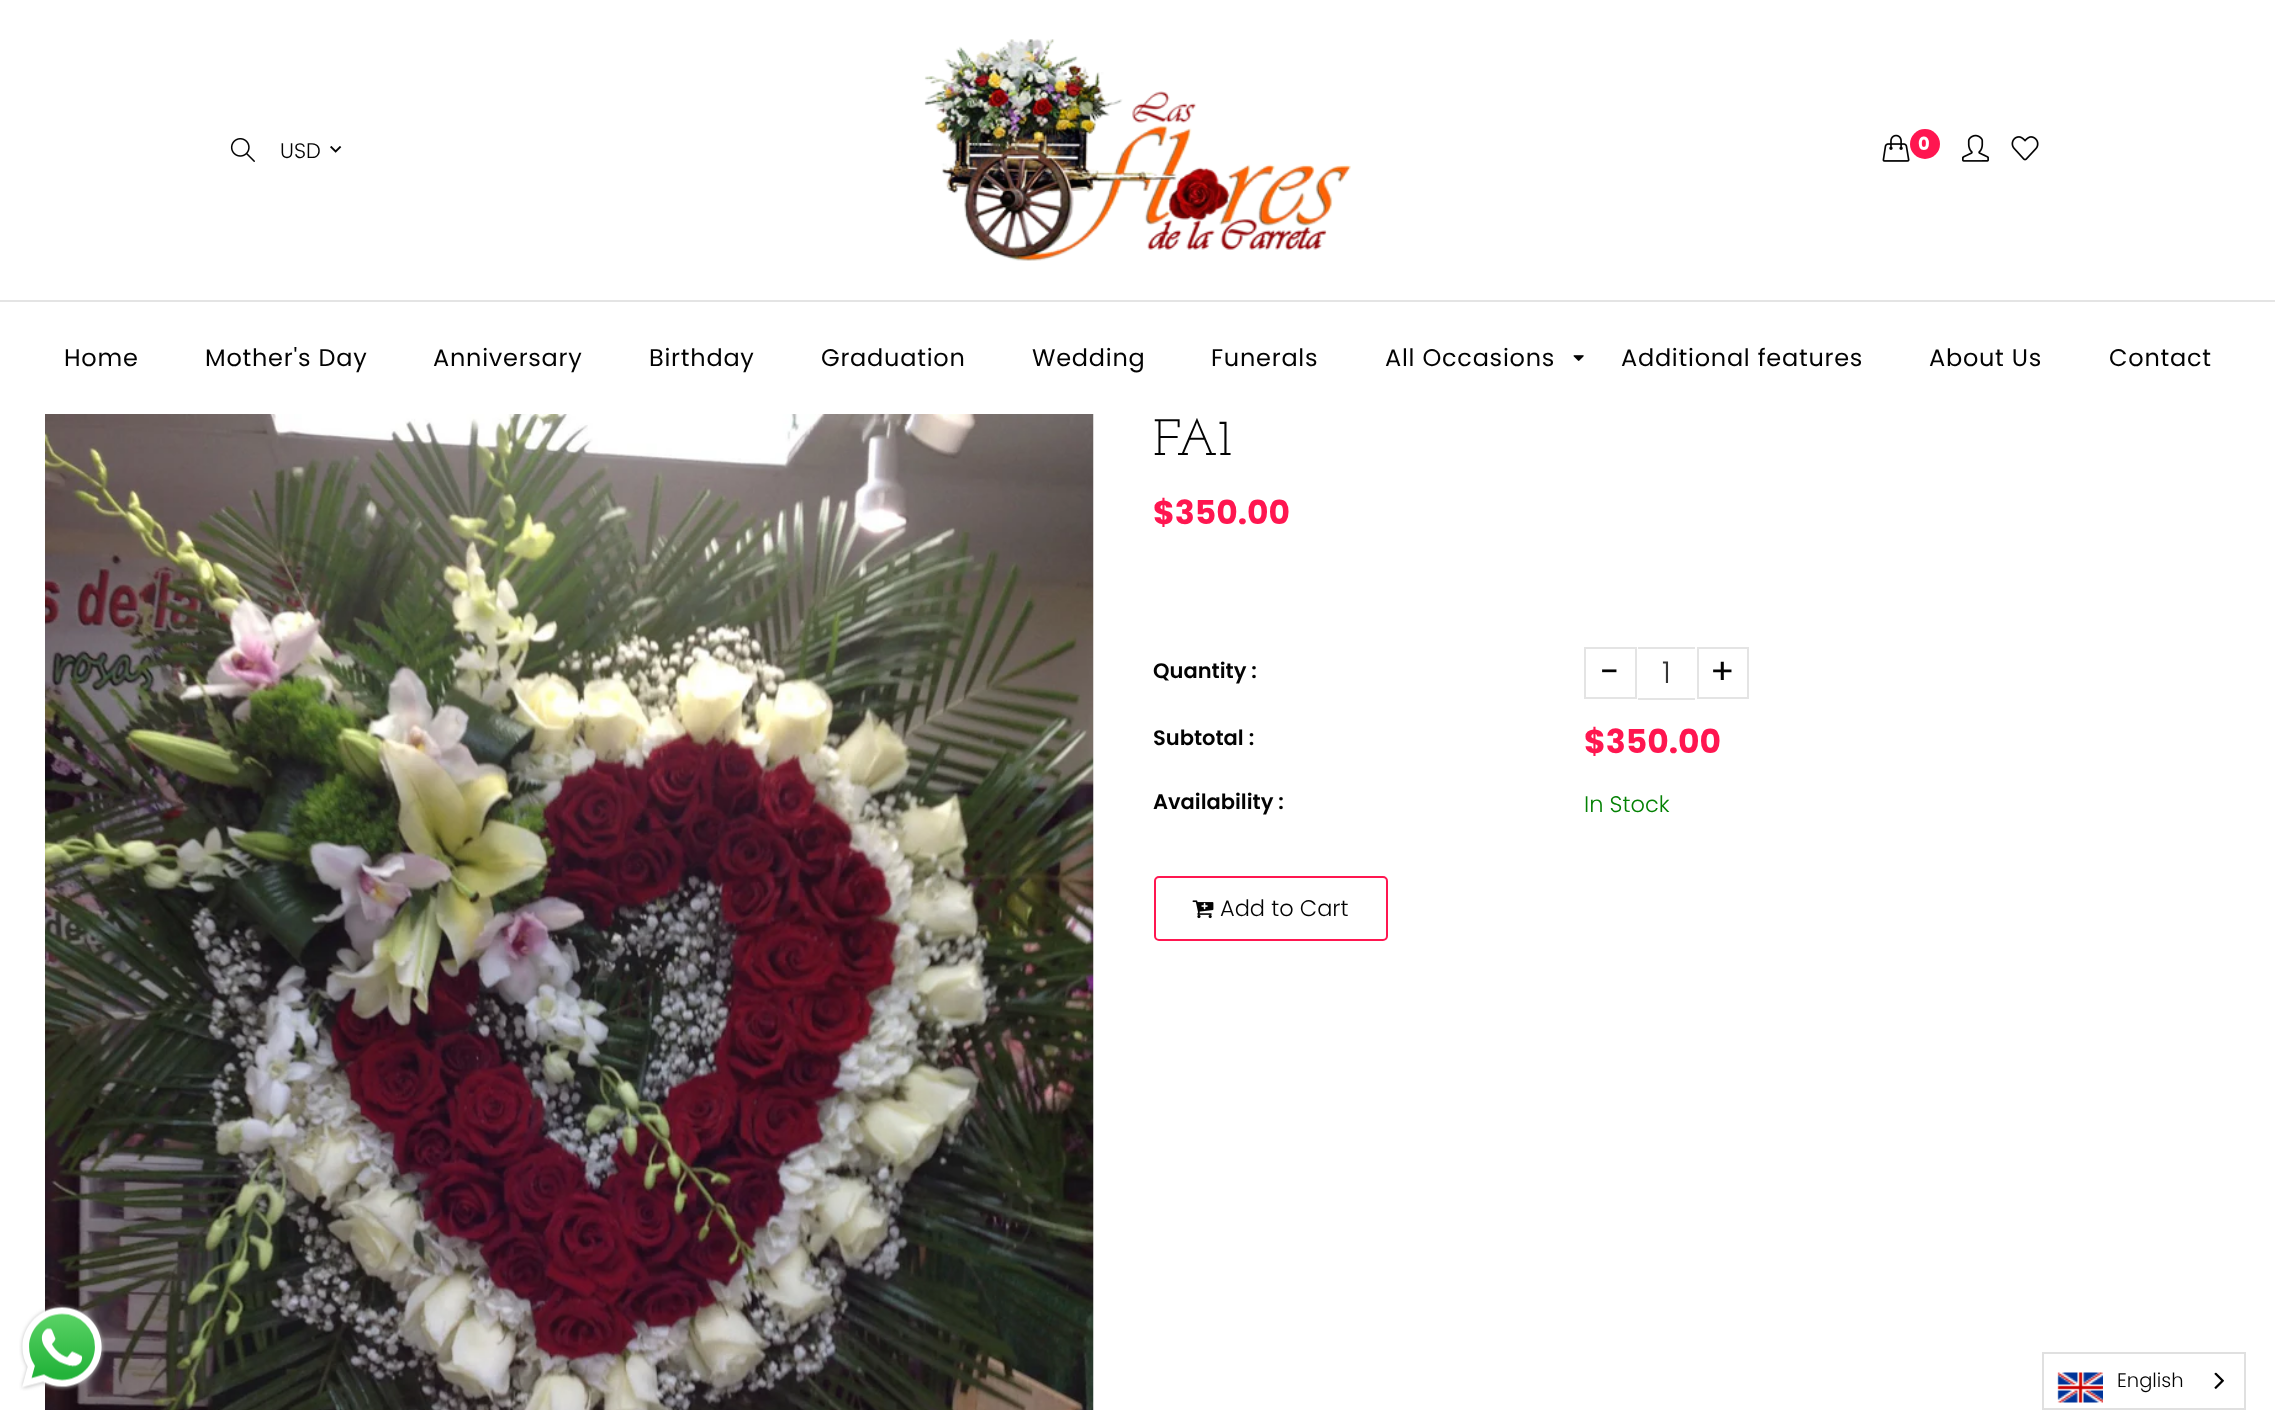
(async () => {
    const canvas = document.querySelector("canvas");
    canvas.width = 2275;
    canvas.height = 1410;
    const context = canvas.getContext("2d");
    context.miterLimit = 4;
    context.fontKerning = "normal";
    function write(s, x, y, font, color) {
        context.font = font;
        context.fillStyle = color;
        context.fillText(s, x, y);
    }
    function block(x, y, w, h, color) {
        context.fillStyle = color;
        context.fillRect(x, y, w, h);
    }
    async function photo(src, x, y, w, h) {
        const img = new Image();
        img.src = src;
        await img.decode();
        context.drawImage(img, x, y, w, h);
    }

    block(0, 0, 2275, 1410, "rgb(255, 255, 255)");
    await photo("media/1.png", 230, 138, 25, 24);
    write("USD", 280, 158, "300 21px Poppins", "rgb(3, 3, 3)");
    await photo("media/2.png", 330, 146, 12, 7);
    await photo("media/3.png", 924, 39, 427, 222);
    await photo("media/4.png", 1882, 134, 28, 28);
    context.fillStyle = "rgb(255, 22, 80)";
    context.beginPath();
    context.arc(1925, 144, 15, 0, Math.PI * 2);
    context.fill();
    write("0", 1918, 150, "bold 18px Poppins", "rgb(255, 255, 255)");
    await photo("media/5.png", 1962, 134, 27, 28);
    await photo("media/6.png", 2011, 136, 28, 25);
    block(0, 300, 2275, 2, "rgb(228, 228, 228)");
    context.letterSpacing = "0.75px";
    write("Home", 64, 366, "24px Poppins", "rgb(3, 3, 3)");
    write("Mother's Day", 205, 366, "24px Poppins", "rgb(3, 3, 3)");
    write("Anniversary", 433, 366, "24px Poppins", "rgb(3, 3, 3)");
    write("Birthday", 649, 366, "24px Poppins", "rgb(3, 3, 3)");
    write("Graduation", 821, 366, "24px Poppins", "rgb(3, 3, 3)");
    write("Wedding", 1032, 366, "24px Poppins", "rgb(3, 3, 3)");
    write("Funerals", 1211, 366, "24px Poppins", "rgb(3, 3, 3)");
    write("All Occasions", 1385, 366, "24px Poppins", "rgb(3, 3, 3)");
    await photo("media/7.png", 1573, 355, 11, 6);
    write("Additional features", 1621, 366, "24px Poppins", "rgb(3, 3, 3)");
    write("About Us", 1929, 366, "24px Poppins", "rgb(3, 3, 3)");
    write("Contact", 2109, 366, "24px Poppins", "rgb(3, 3, 3)");
    await photo("media/8.png", 45, 414, 1049, 996);
    context.letterSpacing = "0px";
    write("FA1", 1153, 455, "51px Josefin Slab", "rgb(3, 3, 3)");
    write("$350.00", 1153, 524, "bold 33px Poppins", "rgb(255, 22, 80)");
    write("Quantity :", 1153, 678, "600 21px Poppins", "rgb(3, 3, 3)");
    context.strokeStyle = "rgb(228, 228, 228)";
    context.lineWidth = 2;
    context.strokeRect(1585, 648, 51, 50);
    write("-", 1600, 684, "36px Poppins", "rgb(3, 3, 3)");
    block(1638, 647, 57, 2, "rgb(228, 228, 228)");
    block(1638, 698, 57, 2, "rgb(228, 228, 228)");
    write("1", 1662, 683, "300 30px Poppins", "rgb(53, 53, 53)");
    context.strokeRect(1698, 648, 50, 50);
    write("+", 1710, 684, "36px Poppins", "rgb(3, 3, 3)");
    write("Subtotal :", 1153, 745, "600 21px Poppins", "rgb(3, 3, 3)");
    write("$350.00", 1584, 753, "bold 33px Poppins", "rgb(255, 22, 80)");
    write("Availability :", 1153, 809, "600 21px Poppins", "rgb(3, 3, 3)");
    write("In Stock", 1584, 812, "300 22.5px Poppins", "rgb(3, 129, 3)");
    context.beginPath();
    context.roundRect(1155, 877, 232, 63, 4);
    context.strokeStyle = "rgb(255, 22, 80)";
    context.stroke();
    await photo("media/9.png", 1192, 900, 22, 19);
    write("Add to Cart", 1220, 916, "300 22.5px Poppins", "rgb(3, 3, 3)");
    await photo("media/10.png", 19, 1304, 87, 87);
    context.strokeStyle = "rgb(224, 224, 224)";
    context.strokeRect(2043, 1353, 202, 56);
    await photo("media/11.png", 2057, 1372, 46, 31);
    write("English", 2117, 1387, "300 19.5px Poppins", "rgb(3, 3, 3)");
    await photo("media/12.png", 2214, 1372, 10, 17);
})();
